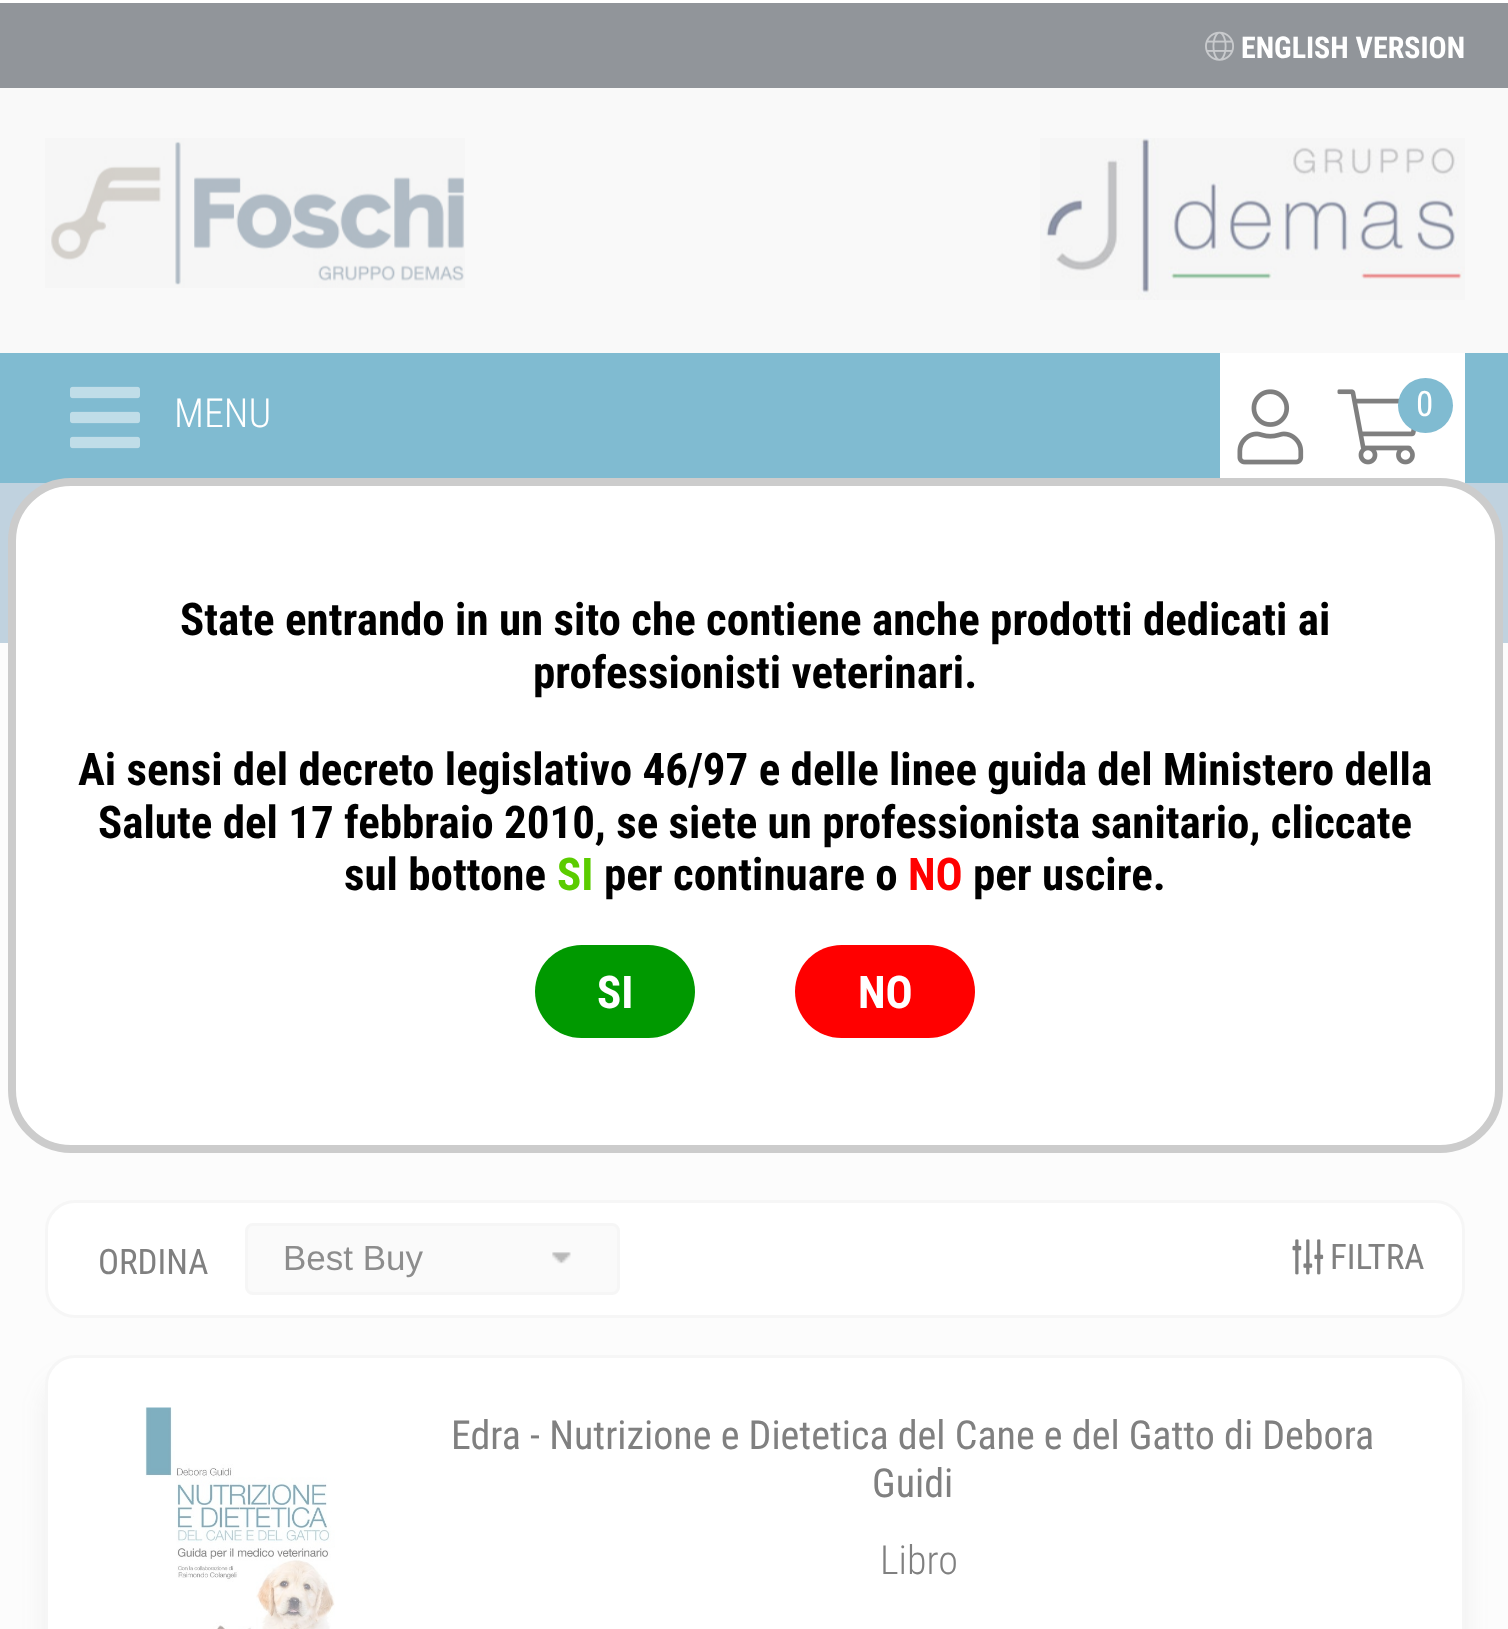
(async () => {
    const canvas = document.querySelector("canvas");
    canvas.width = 1508;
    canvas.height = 1629;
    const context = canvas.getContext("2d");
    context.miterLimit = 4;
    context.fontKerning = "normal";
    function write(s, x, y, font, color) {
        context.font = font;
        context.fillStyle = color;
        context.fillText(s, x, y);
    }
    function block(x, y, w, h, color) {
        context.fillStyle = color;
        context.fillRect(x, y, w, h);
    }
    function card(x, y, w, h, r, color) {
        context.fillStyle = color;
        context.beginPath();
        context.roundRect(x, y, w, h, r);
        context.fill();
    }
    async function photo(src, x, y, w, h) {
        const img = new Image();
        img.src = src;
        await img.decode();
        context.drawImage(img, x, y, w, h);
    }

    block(0, 0, 1508, 1629, "rgb(255, 255, 255)");
    block(0, 643, 1508, 986, "rgb(252, 252, 252)");
    block(0, 88, 1508, 265, "rgb(249, 249, 249)");
    block(0, 3, 1508, 85, "rgb(145, 149, 154)");
    await photo("media/1.png", 1205, 31, 29, 30);
    write("ENGLISH VERSION", 1241, 58, "bold 30px Roboto Condensed", "rgb(255, 255, 255)");
    await photo("media/2.png", 45, 138, 420, 150);
    await photo("media/3.png", 1040, 138, 425, 162);
    block(0, 353, 1508, 130, "rgb(128, 187, 209)");
    await photo("media/4.png", 70, 386, 70, 63);
    write("MENU", 174, 427, "300 40px Roboto Condensed", "rgb(255, 255, 255)");
    block(0, 483, 1508, 160, "rgb(192, 210, 223)");
    block(1220, 353, 245, 131, "rgb(255, 255, 255)");
    await photo("media/5.png", 1237, 389, 67, 76);
    await photo("media/6.png", 1337, 389, 79, 76);
    context.fillStyle = "rgb(128, 187, 209)";
    context.beginPath();
    context.arc(1425.5, 405.5, 27.5, 0, Math.PI * 2);
    context.fill();
    write("0", 1416, 416, "35px Roboto Condensed", "rgb(255, 255, 255)");
    context.beginPath();
    context.roundRect(46.5, 1201.5, 1417, 115, 28.5);
    context.fill();
    context.strokeStyle = "rgb(246, 246, 246)";
    context.lineWidth = 3;
    context.stroke();
    write("ORDINA", 98, 1274, "35px Roboto Condensed", "rgb(128, 128, 128)");
    context.fillStyle = "rgb(250, 250, 250)";
    context.beginPath();
    context.roundRect(246.5, 1224.5, 372, 69, 6.5);
    context.fill();
    context.stroke();
    write("Best Buy", 283, 1270, "35px Liberation Sans", "rgb(141, 141, 141)");
    await photo("media/7.png", 552, 1252, 19, 12);
    await photo("media/8.png", 1292, 1239, 32, 36);
    write("FILTRA", 1330, 1269, "35px Roboto Condensed", "rgb(128, 128, 128)");
    context.fillStyle = "rgba(128, 128, 128, 0.1)";
    context.filter = "blur(12.5px)";
    context.beginPath();
    context.roundRect(45, 1378, 1420, 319, 30);
    context.fill();
    context.filter = "none";
    context.fillStyle = "rgb(255, 255, 255)";
    context.beginPath();
    context.roundRect(46.5, 1356.5, 1417, 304, 28.5);
    context.fill();
    context.stroke();
    await photo("media/9.png", 145, 1407, 190, 222);
    write("Edra - Nutrizione e Dietetica del Cane e del Gatto di Debora", 451, 1449, "40px Roboto Condensed", "rgb(128, 128, 128)");
    write("Guidi", 872, 1497, "40px Roboto Condensed", "rgb(128, 128, 128)");
    write("Libro", 880, 1574, "300 40px Roboto Condensed", "rgb(128, 128, 128)");
    context.fillStyle = "rgb(255, 255, 255)";
    context.beginPath();
    context.roundRect(12, 482, 1487, 667, 59);
    context.fill();
    context.strokeStyle = "rgb(204, 204, 204)";
    context.lineWidth = 8;
    context.stroke();
    write("State entrando in un sito che contiene anche prodotti dedicati ai", 180, 635, "bold 45px Roboto Condensed", "rgb(0, 0, 0)");
    write("professionisti veterinari.", 533, 688, "bold 45px Roboto Condensed", "rgb(0, 0, 0)");
    write("Ai sensi del decreto legislativo 46/97 e delle linee guida del Ministero della", 78, 785, "bold 45px Roboto Condensed", "rgb(0, 0, 0)");
    write("Salute del 17 febbraio 2010, se siete un professionista sanitario, cliccate", 98, 838, "bold 45px Roboto Condensed", "rgb(0, 0, 0)");
    write("sul bottone", 344, 890, "bold 45px Roboto Condensed", "rgb(0, 0, 0)");
    write("SI", 557, 890, "bold 45px Roboto Condensed", "rgb(91, 204, 0)");
    write("per continuare o", 604, 890, "bold 45px Roboto Condensed", "rgb(0, 0, 0)");
    write("NO", 908, 890, "bold 45px Roboto Condensed", "rgb(255, 0, 0)");
    write("per uscire.", 973, 890, "bold 45px Roboto Condensed", "rgb(0, 0, 0)");
    card(535, 945, 160, 93, 46.5, "rgb(0, 153, 0)");
    write("SI", 597, 1008, "bold 45px Roboto Condensed", "rgb(255, 255, 255)");
    card(795, 945, 180, 93, 46.5, "rgb(255, 0, 0)");
    write("NO", 858, 1008, "bold 45px Roboto Condensed", "rgb(255, 255, 255)");
})();
